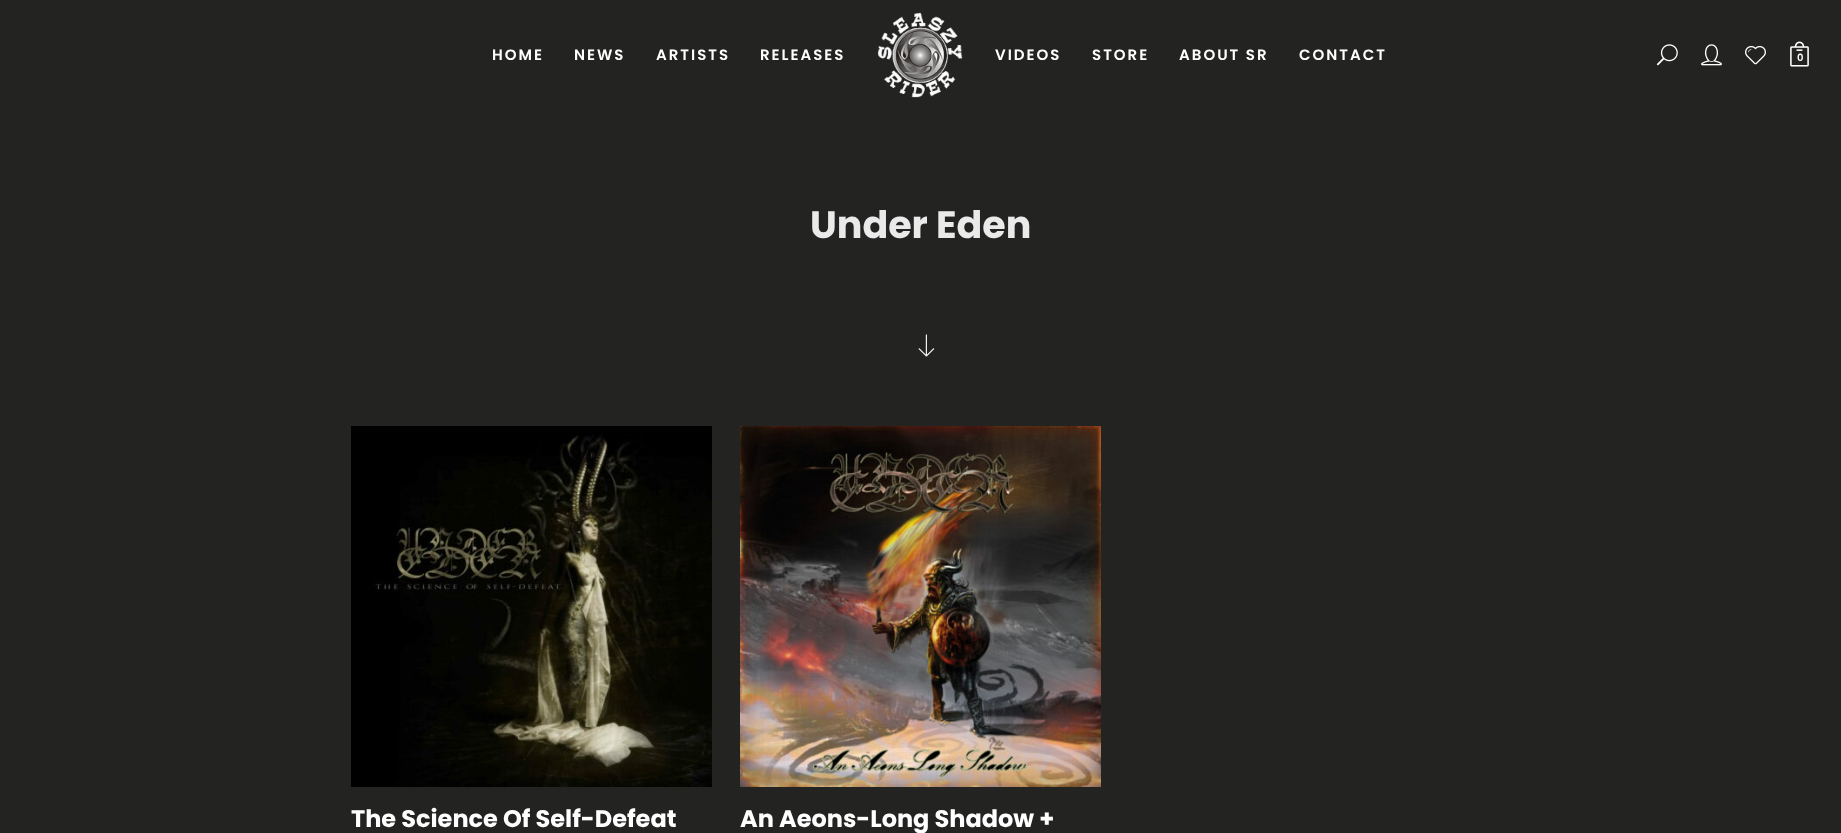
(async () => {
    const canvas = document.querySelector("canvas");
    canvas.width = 1841;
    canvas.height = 833;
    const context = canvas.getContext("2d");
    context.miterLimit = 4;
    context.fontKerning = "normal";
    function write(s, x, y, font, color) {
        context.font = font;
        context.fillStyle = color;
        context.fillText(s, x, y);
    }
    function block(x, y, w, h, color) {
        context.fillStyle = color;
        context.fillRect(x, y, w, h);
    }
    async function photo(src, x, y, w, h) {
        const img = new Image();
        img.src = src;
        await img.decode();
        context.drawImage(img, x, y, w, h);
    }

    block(0, 0, 1841, 833, "rgb(35, 35, 34)");
    context.letterSpacing = "2px";
    write("HOME", 492, 60, "600 15px Poppins", "rgb(255, 255, 255)");
    write("NEWS", 574, 60, "600 15px Poppins", "rgb(255, 255, 255)");
    write("ARTISTS", 656, 60, "600 15px Poppins", "rgb(255, 255, 255)");
    write("RELEASES", 760, 60, "600 15px Poppins", "rgb(255, 255, 255)");
    await photo("media/1.png", 877, 12, 86, 86);
    write("VIDEOS", 995, 60, "600 15px Poppins", "rgb(255, 255, 255)");
    write("STORE", 1092, 60, "600 15px Poppins", "rgb(255, 255, 255)");
    write("ABOUT SR", 1179, 60, "600 15px Poppins", "rgb(255, 255, 255)");
    write("CONTACT", 1299, 60, "600 15px Poppins", "rgb(255, 255, 255)");
    await photo("media/2.png", 1656, 44, 22, 22);
    await photo("media/3.png", 1701, 44, 21, 22);
    await photo("media/4.png", 1745, 46, 21, 19);
    await photo("media/5.png", 1790, 41, 19, 26);
    write("0", 1797, 61, "600 10px Poppins", "rgb(255, 255, 255)");
    context.letterSpacing = "0px";
    write("Under Eden", 810, 238, "bold 38px Poppins", "rgb(234, 234, 234)");
    await photo("media/6.png", 918, 334, 17, 23);
    await photo("media/7.png", 351, 426, 361, 361);
    write("The Science Of Self-Defeat", 351, 827, "bold 24px Poppins", "rgb(255, 255, 255)");
    await photo("media/8.png", 740, 426, 361, 361);
    write("An Aeons-Long Shadow +", 740, 827, "bold 24px Poppins", "rgb(255, 255, 255)");
})();
